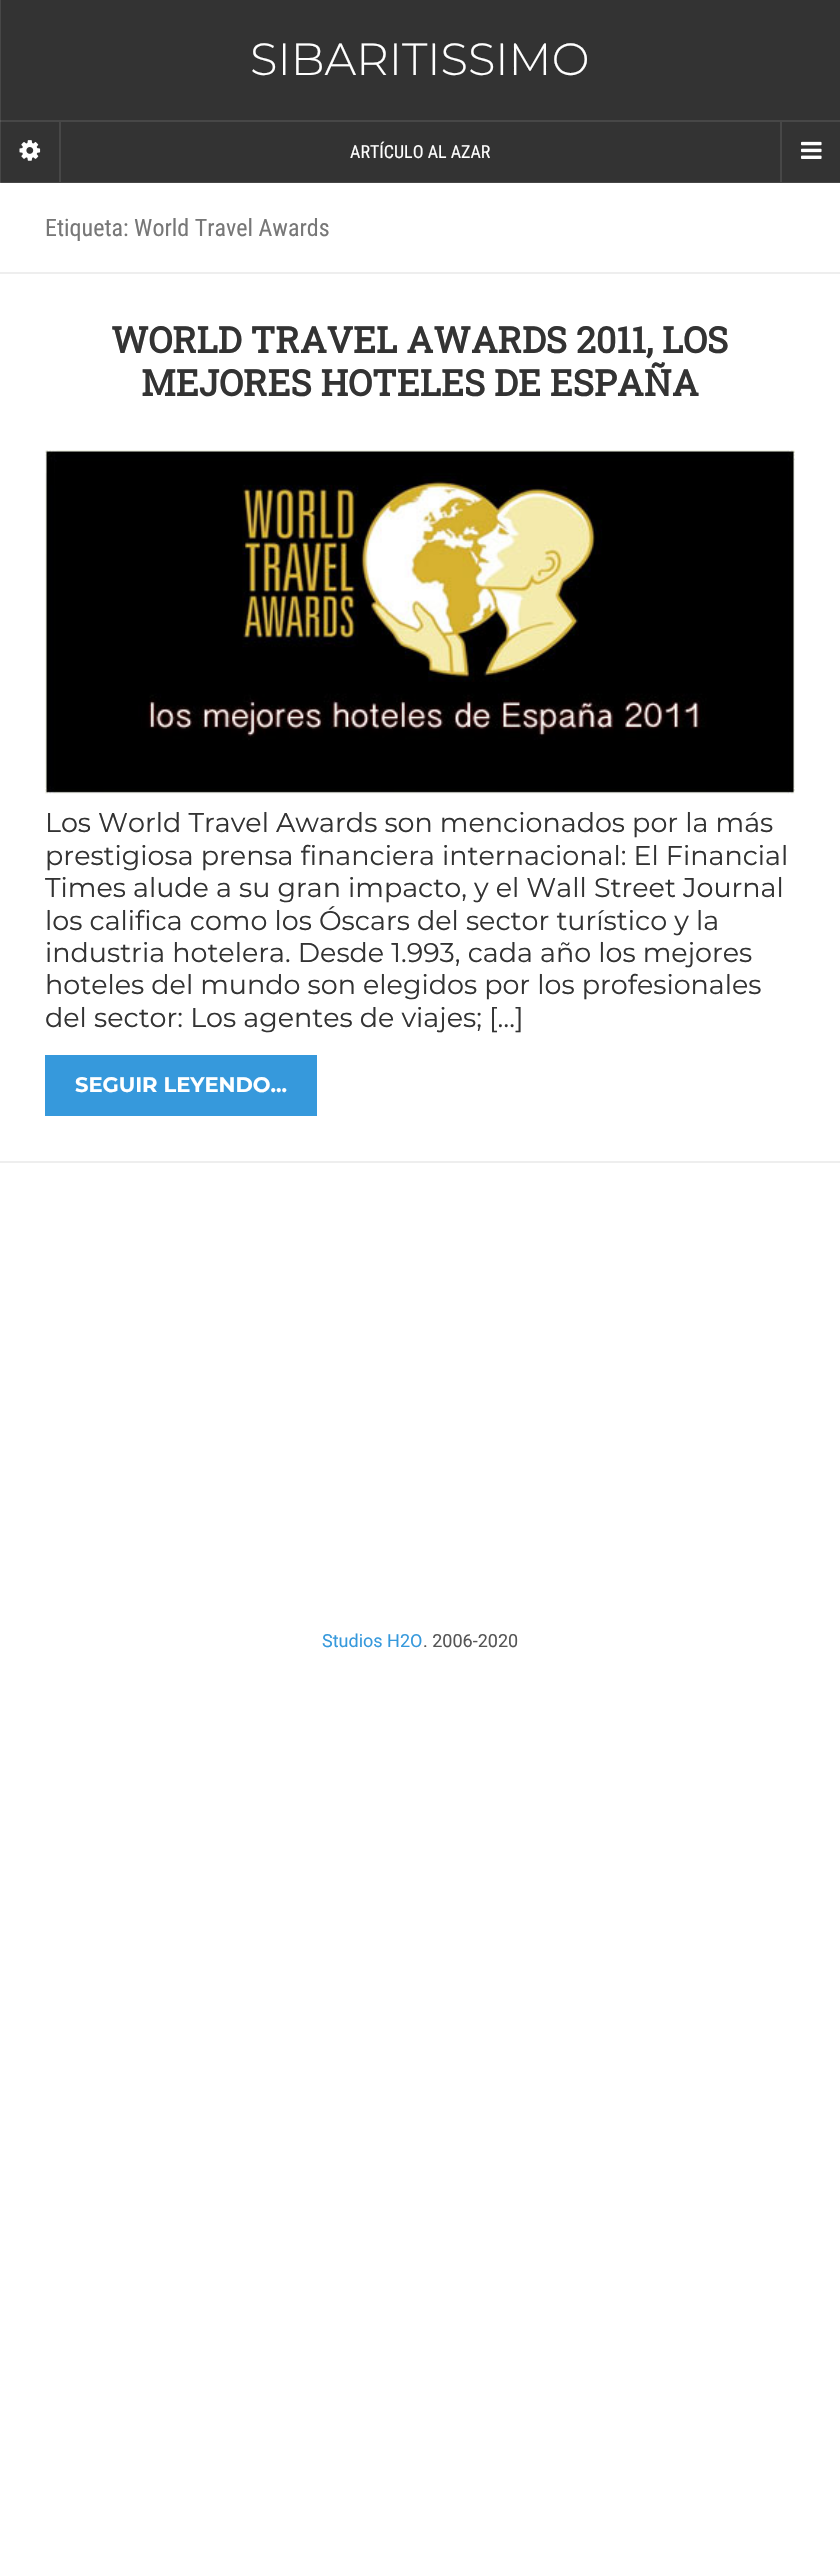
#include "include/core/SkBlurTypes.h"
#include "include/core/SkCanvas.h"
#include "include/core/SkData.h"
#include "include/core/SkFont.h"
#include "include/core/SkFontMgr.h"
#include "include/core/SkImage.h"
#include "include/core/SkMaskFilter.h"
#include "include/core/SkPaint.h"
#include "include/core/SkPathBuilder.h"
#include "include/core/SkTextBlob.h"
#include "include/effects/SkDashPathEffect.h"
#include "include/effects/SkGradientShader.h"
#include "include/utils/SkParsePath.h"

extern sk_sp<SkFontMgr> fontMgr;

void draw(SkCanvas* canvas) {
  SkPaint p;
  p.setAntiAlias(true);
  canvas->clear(SK_ColorWHITE);
  p.setColor(SkColorSetRGB(51, 51, 51));
  canvas->drawRect(SkRect::MakeLTRB(1, 0, 840, 182), p);
  p.setColor(SkColorSetRGB(71, 71, 71));
  canvas->drawRect(SkRect::MakeLTRB(0, 0, 1, 182), p);
  canvas->drawRect(SkRect::MakeLTRB(59, 122, 61, 182), p);
  canvas->drawImageRect(SkImages::DeferredFromEncodedData(SkData::MakeFromFileName("images/1.png")), SkRect::MakeLTRB(19, 140, 41, 161), SkSamplingOptions());
  canvas->drawRect(SkRect::MakeLTRB(0, 182, 840, 183), p);
  p.setColor(SkColorSetRGB(89, 89, 89));
  canvas->drawRect(SkRect::MakeLTRB(0, 182, 1, 184), p);
  p.setColor(SkColorSetRGB(71, 71, 71));
  canvas->drawRect(SkRect::MakeLTRB(0, 120, 840, 122), p);
  p.setColor(SkColorSetRGB(89, 89, 89));
  canvas->drawRect(SkRect::MakeLTRB(0, 120, 1, 122), p);
  p.setColor(SkColorSetRGB(71, 71, 71));
  canvas->drawRect(SkRect::MakeLTRB(780, 122, 782, 182), p);
  canvas->drawImageRect(SkImages::DeferredFromEncodedData(SkData::MakeFromFileName("images/2.png")), SkRect::MakeLTRB(801, 141, 822, 159), SkSamplingOptions());
  p.setColor(SK_ColorWHITE);
  canvas->drawRect(SkRect::MakeLTRB(0, 183, 1, 184), p);
  p.setColor(SkColorSetRGB(238, 238, 238));
  canvas->drawRect(SkRect::MakeLTRB(0, 272, 840, 274), p);
  canvas->drawRect(SkRect::MakeLTRB(0, 1161, 840, 1163), p);
  canvas->drawImageRect(SkImages::DeferredFromEncodedData(SkData::MakeFromFileName("images/3.png")), SkRect::MakeLTRB(45, 450, 795, 794), SkSamplingOptions());
  p.setColor(SkColorSetRGB(54, 153, 220));
  canvas->drawRect(SkRect::MakeLTRB(45, 1055, 317, 1116), p);
  SkFont font1(fontMgr->matchFamilyStyle("Montserrat", SkFontStyle(300, SkFontStyle::kNormal_Width, SkFontStyle::kUpright_Slant)), 45);
  font1.setSubpixel(true);
  p.setColor(SK_ColorWHITE);
  canvas->drawString("SIBARITISSIMO", 250, 75, font1, p);
  SkFont font2(fontMgr->matchFamilyStyle("Roboto Condensed", SkFontStyle::Normal()), 18);
  font2.setSubpixel(true);
  canvas->drawString("ARTÍCULO AL AZAR", 350, 158, font2, p);
  SkFont font3(fontMgr->matchFamilyStyle("Roboto Condensed", SkFontStyle::Normal()), 24);
  font3.setSubpixel(true);
  p.setColor(SkColorSetRGB(119, 119, 119));
  canvas->drawString("Etiqueta: World Travel Awards", 45, 236, font3, p);
  SkFont font4(fontMgr->matchFamilyStyle("Roboto Slab", SkFontStyle::Bold()), 36);
  font4.setSubpixel(true);
  p.setColor(SkColorSetRGB(51, 51, 51));
  canvas->drawString("WORLD TRAVEL AWARDS 2011, LOS", 111, 353, font4, p);
  canvas->drawString("MEJORES HOTELES DE ESPAÑA", 141, 396, font4, p);
  SkFont font5(fontMgr->matchFamilyStyle("Montserrat", SkFontStyle::Normal()), 27);
  font5.setSubpixel(true);
  canvas->drawString("Los World Travel Awards son mencionados por la más", 45, 832, font5, p);
  canvas->drawString("prestigiosa prensa financiera internacional: El Financial", 45, 865, font5, p);
  canvas->drawString("Times alude a su gran impacto, y el Wall Street Journal", 45, 897, font5, p);
  canvas->drawString("los califica como los Óscars del sector turístico y la", 45, 930, font5, p);
  canvas->drawString("industria hotelera. Desde 1.993, cada año los mejores", 45, 962, font5, p);
  canvas->drawString("hoteles del mundo son elegidos por los profesionales", 45, 994, font5, p);
  canvas->drawString("del sector: Los agentes de viajes; […]", 45, 1027, font5, p);
  SkFont font6(fontMgr->matchFamilyStyle("Montserrat", SkFontStyle::Bold()), 21);
  font6.setSubpixel(true);
  p.setColor(SK_ColorWHITE);
  canvas->drawString("SEGUIR LEYENDO...", 75, 1092, font6, p);
  SkFont font7(fontMgr->matchFamilyStyle("Roboto", SkFontStyle::Normal()), 18);
  font7.setSubpixel(true);
  p.setColor(SkColorSetRGB(54, 153, 220));
  canvas->drawString("Studios H2O", 322, 1647, font7, p);
  p.setColor(SkColorSetRGB(85, 85, 85));
  canvas->drawString(". 2006-2020", 423, 1647, font7, p);
}
